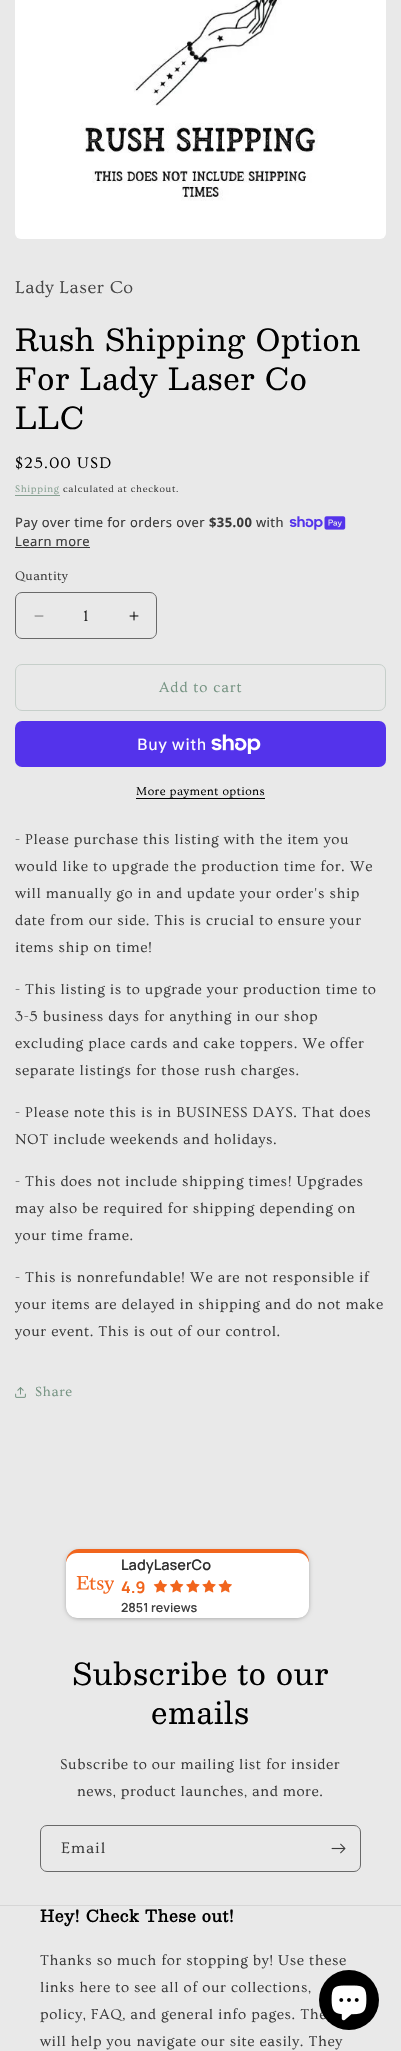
#include "include/core/SkBlurTypes.h"
#include "include/core/SkCanvas.h"
#include "include/core/SkData.h"
#include "include/core/SkFont.h"
#include "include/core/SkFontMgr.h"
#include "include/core/SkImage.h"
#include "include/core/SkMaskFilter.h"
#include "include/core/SkPaint.h"
#include "include/core/SkPathBuilder.h"
#include "include/core/SkTextBlob.h"
#include "include/effects/SkDashPathEffect.h"
#include "include/effects/SkGradientShader.h"
#include "include/utils/SkParsePath.h"

extern sk_sp<SkFontMgr> fontMgr;

void draw(SkCanvas* canvas) {
  SkPaint p;
  p.setAntiAlias(true);
  auto spacedText = [&](const char* s, float x, float y, const SkFont& font, const SkPaint& ink, float letter, float word) {
    std::vector<SkGlyphID> glyphs(font.countText(s, strlen(s), SkTextEncoding::kUTF8));
    std::vector<float> xs(glyphs.size());
    font.textToGlyphs(s, strlen(s), SkTextEncoding::kUTF8, glyphs);
    font.getXPos(glyphs, xs, x);
    float extra = 0;
    for (size_t i = 0; i < glyphs.size(); i++) {
      xs[i] += extra;
      extra += letter + word * (glyphs[i] == font.unicharToGlyph(' '));
    }
    canvas->drawTextBlob(SkTextBlob::MakeFromPosHGlyphs(glyphs, xs, y, font), 0, 0, ink);
  };
  canvas->clear(SkColorSetRGB(233, 233, 233));
  canvas->drawImageRect(SkImages::DeferredFromEncodedData(SkData::MakeFromFileName("images/1.png")), SkRect::MakeLTRB(15, 0, 386, 239), SkSamplingOptions());
  p.setColor(SkColorSetRGB(134, 160, 145));
  canvas->drawRect(SkRect::MakeLTRB(15, 495, 60, 496), p);
  canvas->drawImageRect(SkImages::DeferredFromEncodedData(SkData::MakeFromFileName("images/2.png")), SkRect::MakeLTRB(289, 516, 346, 530), SkSamplingOptions());
  p.setColor(SkColorSetRGB(58, 58, 58));
  canvas->drawRect(SkRect::MakeLTRB(15, 547, 90, 548), p);
  canvas->drawImageRect(SkImages::DeferredFromEncodedData(SkData::MakeFromFileName("images/3.png")), SkRect::MakeLTRB(34, 615, 44, 617), SkSamplingOptions());
  canvas->drawImageRect(SkImages::DeferredFromEncodedData(SkData::MakeFromFileName("images/4.png")), SkRect::MakeLTRB(129, 611, 139, 621), SkSamplingOptions());
  p.setStyle(SkPaint::kStroke_Style);
  p.setStrokeWidth(1);
  p.setColor(SkColorSetRGB(105, 105, 105));
  canvas->drawRoundRect(SkRect::MakeLTRB(15.5f, 592.5f, 156.5f, 638.5f), 6.5f, 6.5f, p);
  p.setColor(SkColorSetRGB(198, 207, 202));
  canvas->drawRoundRect(SkRect::MakeLTRB(15.5f, 664.5f, 385.5f, 710.5f), 6.5f, 6.5f, p);
  p.setStyle(SkPaint::kFill_Style);
  p.setColor(SkColorSetRGB(84, 51, 235));
  canvas->drawRoundRect(SkRect::MakeLTRB(15, 721, 386, 767), 7, 7, p);
  canvas->drawImageRect(SkImages::DeferredFromEncodedData(SkData::MakeFromFileName("images/5.png")), SkRect::MakeLTRB(211, 734, 261, 754), SkSamplingOptions());
  p.setColor(SK_ColorBLACK);
  canvas->drawRect(SkRect::MakeLTRB(136, 798, 265, 799), p);
  canvas->drawImageRect(SkImages::DeferredFromEncodedData(SkData::MakeFromFileName("images/6.png")), SkRect::MakeLTRB(15, 1387, 26, 1398), SkSamplingOptions());
  p.setColor(SkColorSetARGB(66, 0, 0, 0));
  p.setMaskFilter(SkMaskFilter::MakeBlur(kNormal_SkBlurStyle, 2));
  canvas->drawRoundRect(SkRect::MakeLTRB(66, 1551, 309, 1619), 13, 13, p);
  p.setMaskFilter(nullptr);
  p.setColor(SkColorSetRGB(241, 101, 29));
  canvas->drawPath(SkPathBuilder().moveTo(79, 1549).lineTo(296, 1549).cubicTo(303, 1549, 309, 1555, 309, 1562).lineTo(66, 1562).cubicTo(66, 1555, 72, 1549, 79, 1549).close().detach(), p);
  canvas->save();
  canvas->clipPath(SkPathBuilder().moveTo(79, 1549).lineTo(296, 1549).cubicTo(303, 1549, 309, 1555, 309, 1562).lineTo(309, 1607).cubicTo(309, 1613, 304, 1618, 298, 1618).lineTo(77, 1618).cubicTo(71, 1618, 66, 1613, 66, 1607).lineTo(66, 1562).cubicTo(66, 1555, 72, 1549, 79, 1549).close().detach(), true);
  p.setColor(SK_ColorWHITE);
  canvas->drawRoundRect(SkRect::MakeLTRB(66, 1553, 309, 1618), 11, 11, p);
  canvas->restore();
  canvas->drawImageRect(SkImages::DeferredFromEncodedData(SkData::MakeFromFileName("images/7.png")), SkRect::MakeLTRB(76, 1576, 114, 1594), SkSamplingOptions());
  canvas->drawImageRect(SkImages::DeferredFromEncodedData(SkData::MakeFromFileName("images/8.png")), SkRect::MakeLTRB(153, 1580, 168, 1593), SkSamplingOptions());
  canvas->drawImageRect(SkImages::DeferredFromEncodedData(SkData::MakeFromFileName("images/9.png")), SkRect::MakeLTRB(170, 1580, 184, 1593), SkSamplingOptions());
  canvas->drawImageRect(SkImages::DeferredFromEncodedData(SkData::MakeFromFileName("images/10.png")), SkRect::MakeLTRB(186, 1580, 200, 1593), SkSamplingOptions());
  canvas->drawImageRect(SkImages::DeferredFromEncodedData(SkData::MakeFromFileName("images/11.png")), SkRect::MakeLTRB(202, 1580, 216, 1593), SkSamplingOptions());
  canvas->drawImageRect(SkImages::DeferredFromEncodedData(SkData::MakeFromFileName("images/12.png")), SkRect::MakeLTRB(218, 1580, 232, 1593), SkSamplingOptions());
  p.setStyle(SkPaint::kStroke_Style);
  p.setColor(SkColorSetRGB(105, 105, 105));
  canvas->drawRoundRect(SkRect::MakeLTRB(40.5f, 1825.5f, 360.5f, 1871.5f), 6.5f, 6.5f, p);
  canvas->drawImageRect(SkImages::DeferredFromEncodedData(SkData::MakeFromFileName("images/13.png")), SkRect::MakeLTRB(331, 1843, 346, 1854), SkSamplingOptions());
  p.setStyle(SkPaint::kFill_Style);
  p.setColor(SkColorSetRGB(214, 214, 214));
  canvas->drawRect(SkRect::MakeLTRB(0, 1905, 401, 1906), p);
  SkFont font1(fontMgr->matchFamilyStyle("Ovo", SkFontStyle::Normal()), 18);
  font1.setSubpixel(true);
  p.setColor(SkColorSetRGB(70, 70, 70));
  spacedText("Lady Laser Co", 15, 293, font1, p, 0.6f, 0);
  SkFont font2(fontMgr->matchFamilyStyle("Besley", SkFontStyle::Normal()), 30);
  font2.setSubpixel(true);
  p.setColor(SK_ColorBLACK);
  spacedText("Rush Shipping Option", 15, 351, font2, p, 0.6f, 0);
  spacedText("For Lady Laser Co", 15, 390, font2, p, 0.6f, 0);
  spacedText("LLC", 15, 429, font2, p, 0.6f, 0);
  SkFont font3(fontMgr->matchFamilyStyle("Ovo", SkFontStyle::Normal()), 16);
  font3.setSubpixel(true);
  spacedText("$25.00 USD", 15, 468, font3, p, 1.25f, 0);
  SkFont font4(fontMgr->matchFamilyStyle("Ovo", SkFontStyle::Normal()), 10);
  font4.setSubpixel(true);
  p.setColor(SkColorSetRGB(134, 160, 145));
  spacedText("Shipping", 15, 492, font4, p, 0.7f, 0);
  p.setColor(SkColorSetRGB(58, 58, 58));
  spacedText("calculated at checkout.", 63, 492, font4, p, 0.7f, 0);
  SkFont font5(fontMgr->matchFamilyStyle("Noto Sans", SkFontStyle::Normal()), 13);
  font5.setSubpixel(true);
  spacedText("Pay over time for orders over", 15, 527, font5, p, 0.4f, 0);
  SkFont font6(fontMgr->matchFamilyStyle("Noto Sans", SkFontStyle::Bold()), 13);
  font6.setSubpixel(true);
  spacedText("$35.00", 209, 527, font6, p, 0.4f, 0);
  spacedText("with", 256, 527, font5, p, 0.4f, 0);
  spacedText("Learn more", 15, 546, font5, p, 0.4f, 0);
  SkFont font7(fontMgr->matchFamilyStyle("Ovo", SkFontStyle::Normal()), 13);
  font7.setSubpixel(true);
  spacedText("Quantity", 15, 580, font7, p, 0.4f, 0);
  p.setColor(SkColorSetRGB(35, 35, 35));
  canvas->drawString("1", 83, 621, font3, p);
  SkFont font8(fontMgr->matchFamilyStyle("Ovo", SkFontStyle::Normal()), 15);
  font8.setSubpixel(true);
  p.setColor(SkColorSetRGB(117, 147, 130));
  spacedText("Add to cart", 159, 692, font8, p, 1, 0);
  SkFont font9(fontMgr->matchFamilyStyle("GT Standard", SkFontStyle::Normal()), 16);
  font9.setSubpixel(true);
  p.setColor(SK_ColorWHITE);
  spacedText("Buy with", 137, 750, font9, p, 0.6f, 0);
  SkFont font10(fontMgr->matchFamilyStyle("Ovo", SkFontStyle::Normal()), 12);
  font10.setSubpixel(true);
  p.setColor(SK_ColorBLACK);
  spacedText("More payment options", 136, 795, font10, p, 0.5f, 0);
  p.setColor(SkColorSetRGB(58, 58, 58));
  spacedText("- Please purchase this listing with the item you", 15, 844, font8, p, 0.6f, 0);
  spacedText("would like to upgrade the production time for. We", 15, 871, font8, p, 0.6f, 0);
  spacedText("will manually go in and update your order's ship", 15, 898, font8, p, 0.6f, 0);
  spacedText("date from our side. This is crucial to ensure your", 15, 925, font8, p, 0.6f, 0);
  spacedText("items ship on time!", 15, 952, font8, p, 0.6f, 0);
  spacedText("- This listing is to upgrade your production time to", 15, 994, font8, p, 0.6f, 0);
  spacedText("3-5 business days for anything in our shop", 15, 1021, font8, p, 0.6f, 0);
  spacedText("excluding place cards and cake toppers. We offer", 15, 1048, font8, p, 0.6f, 0);
  spacedText("separate listings for those rush charges.", 15, 1075, font8, p, 0.6f, 0);
  spacedText("- Please note this is in BUSINESS DAYS. That does", 15, 1117, font8, p, 0.6f, 0);
  spacedText("NOT include weekends and holidays.", 15, 1144, font8, p, 0.6f, 0);
  spacedText("- This does not include shipping times! Upgrades", 15, 1186, font8, p, 0.6f, 0);
  spacedText("may also be required for shipping depending on", 15, 1213, font8, p, 0.6f, 0);
  spacedText("your time frame.", 15, 1240, font8, p, 0.6f, 0);
  spacedText("- This is nonrefundable! We are not responsible if", 15, 1282, font8, p, 0.6f, 0);
  spacedText("your items are delayed in shipping and do not make", 15, 1309, font8, p, 0.6f, 0);
  spacedText("your event. This is out of our control.", 15, 1336, font8, p, 0.6f, 0);
  SkFont font11(fontMgr->matchFamilyStyle("Ovo", SkFontStyle::Normal()), 14);
  font11.setSubpixel(true);
  p.setColor(SkColorSetRGB(117, 147, 130));
  spacedText("Share", 35, 1396, font11, p, 0.6f, 0);
  SkFont font12(fontMgr->matchFamilyStyle("Manrope", SkFontStyle(600, SkFontStyle::kNormal_Width, SkFontStyle::kUpright_Slant)), 14.5f);
  font12.setSubpixel(true);
  p.setColor(SkColorSetRGB(46, 46, 46));
  canvas->drawString("LadyLaserCo", 121, 1570, font12, p);
  SkFont font13(fontMgr->matchFamilyStyle("Manrope", SkFontStyle::Bold()), 16);
  font13.setSubpixel(true);
  p.setColor(SkColorSetRGB(241, 101, 29));
  canvas->drawString("4.9", 121, 1593, font13, p);
  SkFont font14(fontMgr->matchFamilyStyle("Manrope", SkFontStyle(600, SkFontStyle::kNormal_Width, SkFontStyle::kUpright_Slant)), 12.5f);
  font14.setSubpixel(true);
  p.setColor(SkColorSetRGB(64, 64, 64));
  canvas->drawString("2851 reviews", 121, 1612, font14, p);
  p.setColor(SK_ColorBLACK);
  spacedText("Subscribe to our", 72, 1685, font2, p, 0.6f, 0);
  spacedText("emails", 151, 1724, font2, p, 0.6f, 0);
  p.setColor(SkColorSetRGB(58, 58, 58));
  spacedText("Subscribe to our mailing list for insider", 60, 1769, font8, p, 0.6f, 0);
  spacedText("news, product launches, and more.", 77, 1796, font8, p, 0.6f, 0);
  spacedText("Email", 61, 1853, font3, p, 1, 0);
  SkFont font15(fontMgr->matchFamilyStyle("Besley", SkFontStyle::Bold()), 16);
  font15.setSubpixel(true);
  p.setColor(SK_ColorBLACK);
  spacedText("Hey! Check These out!", 40, 1922, font15, p, 0.6f, 0);
  p.setColor(SkColorSetRGB(58, 58, 58));
  spacedText("Thanks so much for stopping by! Use these", 40, 1965, font8, p, 0.6f, 0);
  spacedText("links here to see all of our collections,", 40, 1992, font8, p, 0.6f, 0);
  spacedText("policy, FAQ, and general info pages. The", 40, 2019, font8, p, 0.6f, 0);
  spacedText("will help you navigate our site easily. They", 40, 2046, font8, p, 0.6f, 0);
  p.setColor(SK_ColorBLACK);
  canvas->drawCircle(349, 2000, 30, p);
  canvas->drawImageRect(SkImages::DeferredFromEncodedData(SkData::MakeFromFileName("images/14.png")), SkRect::MakeLTRB(331, 1985, 367, 2021), SkSamplingOptions());
}
